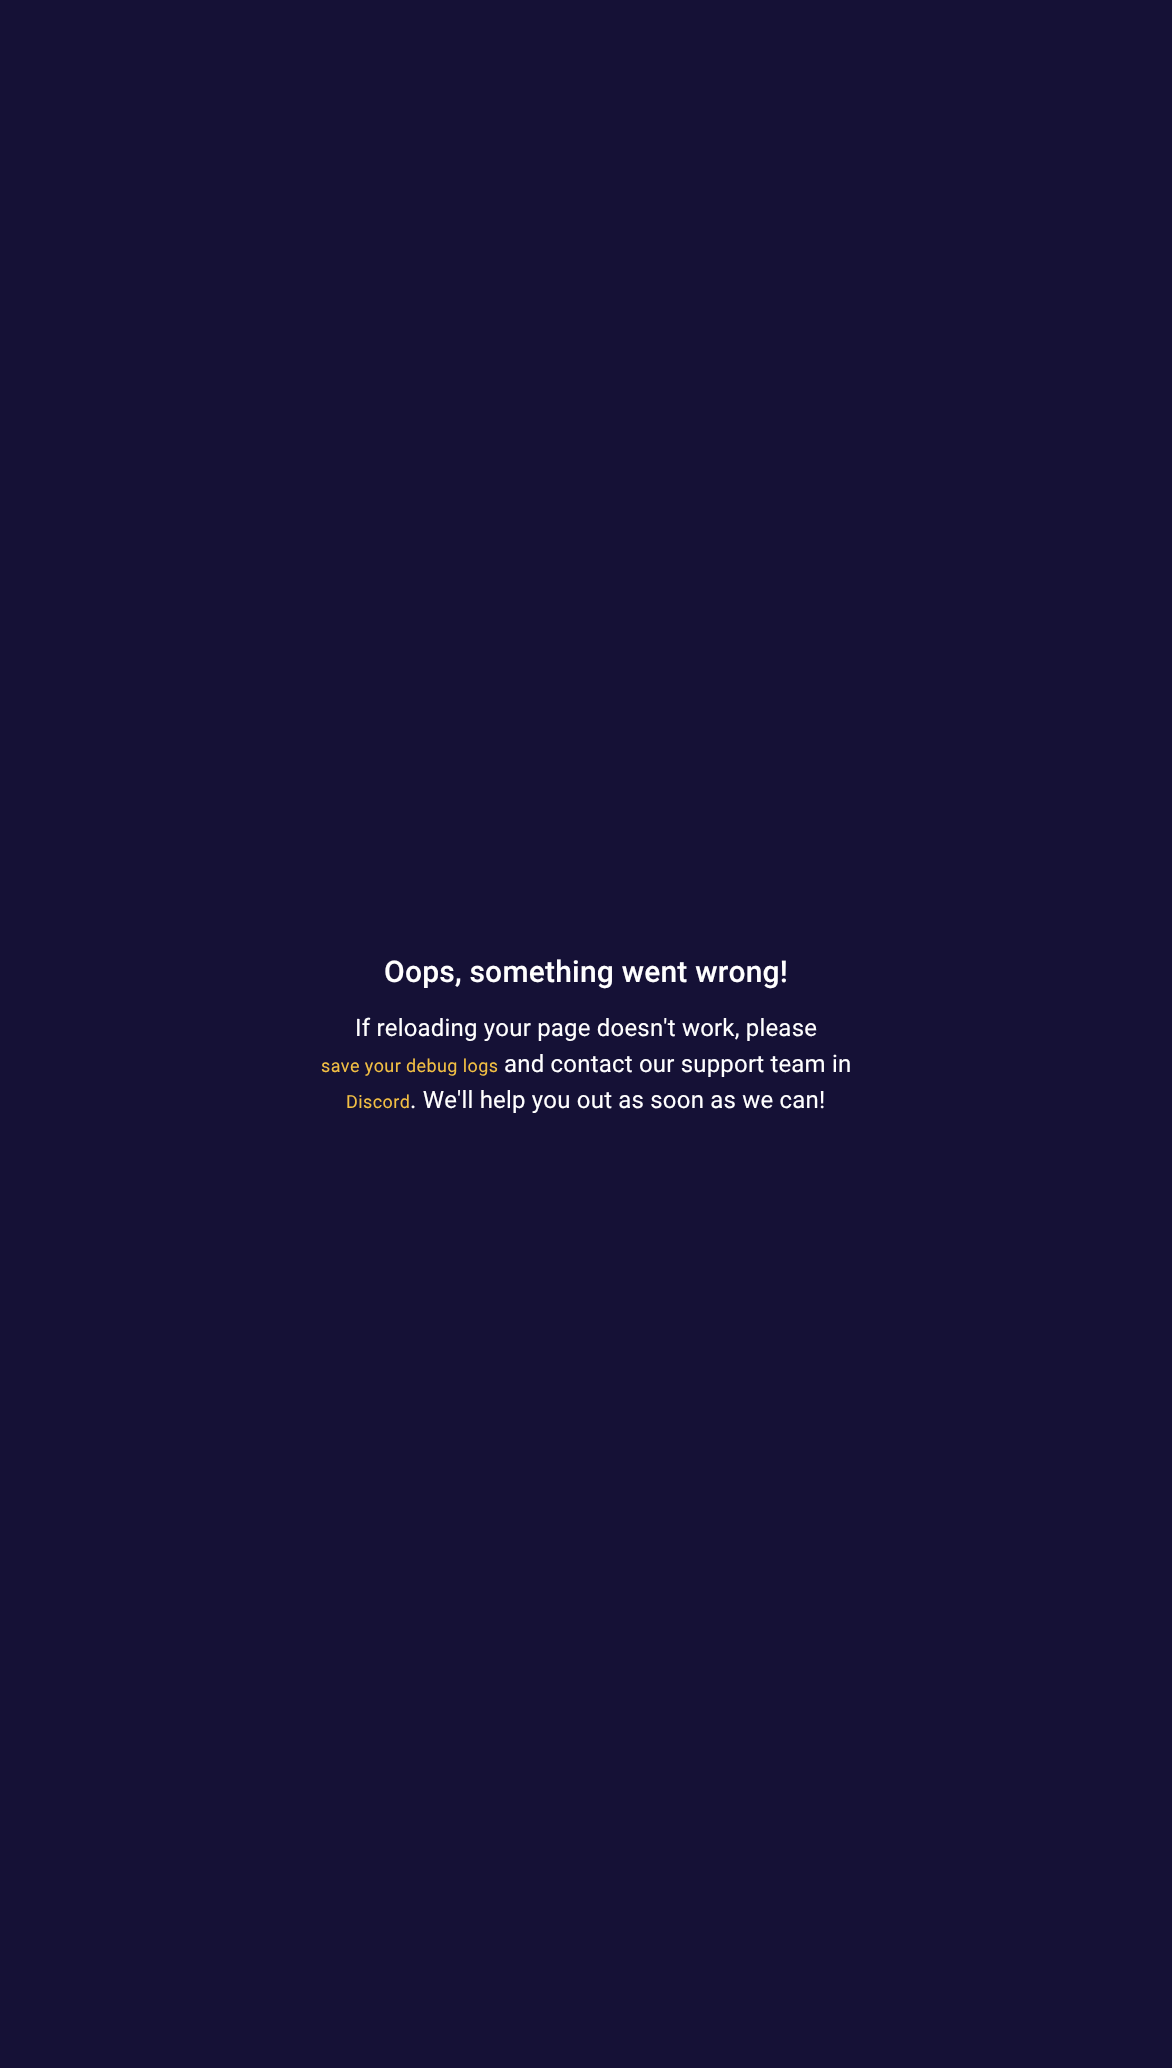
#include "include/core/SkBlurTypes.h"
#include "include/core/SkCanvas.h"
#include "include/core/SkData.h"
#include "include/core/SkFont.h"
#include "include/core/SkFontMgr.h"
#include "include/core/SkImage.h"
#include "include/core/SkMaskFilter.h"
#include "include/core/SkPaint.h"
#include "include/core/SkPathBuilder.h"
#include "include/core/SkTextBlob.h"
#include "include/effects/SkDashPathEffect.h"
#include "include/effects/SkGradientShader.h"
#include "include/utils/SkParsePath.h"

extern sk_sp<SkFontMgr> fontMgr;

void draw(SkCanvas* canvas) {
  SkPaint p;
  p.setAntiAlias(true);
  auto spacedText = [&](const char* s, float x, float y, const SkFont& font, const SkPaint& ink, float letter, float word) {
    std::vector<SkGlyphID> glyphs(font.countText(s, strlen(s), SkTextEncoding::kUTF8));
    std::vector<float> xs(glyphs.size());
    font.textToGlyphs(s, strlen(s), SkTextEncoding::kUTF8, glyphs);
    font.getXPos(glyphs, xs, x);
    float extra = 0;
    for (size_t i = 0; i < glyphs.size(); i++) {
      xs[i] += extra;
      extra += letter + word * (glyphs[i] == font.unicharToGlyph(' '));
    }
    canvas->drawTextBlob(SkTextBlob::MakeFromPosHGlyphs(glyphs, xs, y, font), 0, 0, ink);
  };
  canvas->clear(SkColorSetRGB(21, 17, 54));
  SkFont font1(fontMgr->matchFamilyStyle("Roboto", SkFontStyle(500, SkFontStyle::kNormal_Width, SkFontStyle::kUpright_Slant)), 30);
  font1.setSubpixel(true);
  p.setColor(SK_ColorWHITE);
  spacedText("Oops, something went wrong!", 384, 982, font1, p, 0.2f, 0);
  SkFont font2(fontMgr->matchFamilyStyle("Roboto", SkFontStyle::Normal()), 24);
  font2.setSubpixel(true);
  spacedText("If reloading your page doesn't work, please", 355, 1036, font2, p, 0.2f, 0);
  SkFont font3(fontMgr->matchFamilyStyle("Roboto", SkFontStyle::Normal()), 18);
  font3.setSubpixel(true);
  p.setColor(SkColorSetRGB(242, 191, 67));
  spacedText("save your debug logs", 321, 1072, font3, p, 0.4f, 0);
  p.setColor(SK_ColorWHITE);
  spacedText("and contact our support team in", 504, 1072, font2, p, 0.2f, 0);
  p.setColor(SkColorSetRGB(242, 191, 67));
  spacedText("Discord", 346, 1108, font3, p, 0.4f, 0);
  p.setColor(SK_ColorWHITE);
  spacedText(". We'll help you out as soon as we can!", 410, 1108, font2, p, 0.2f, 0);
}
